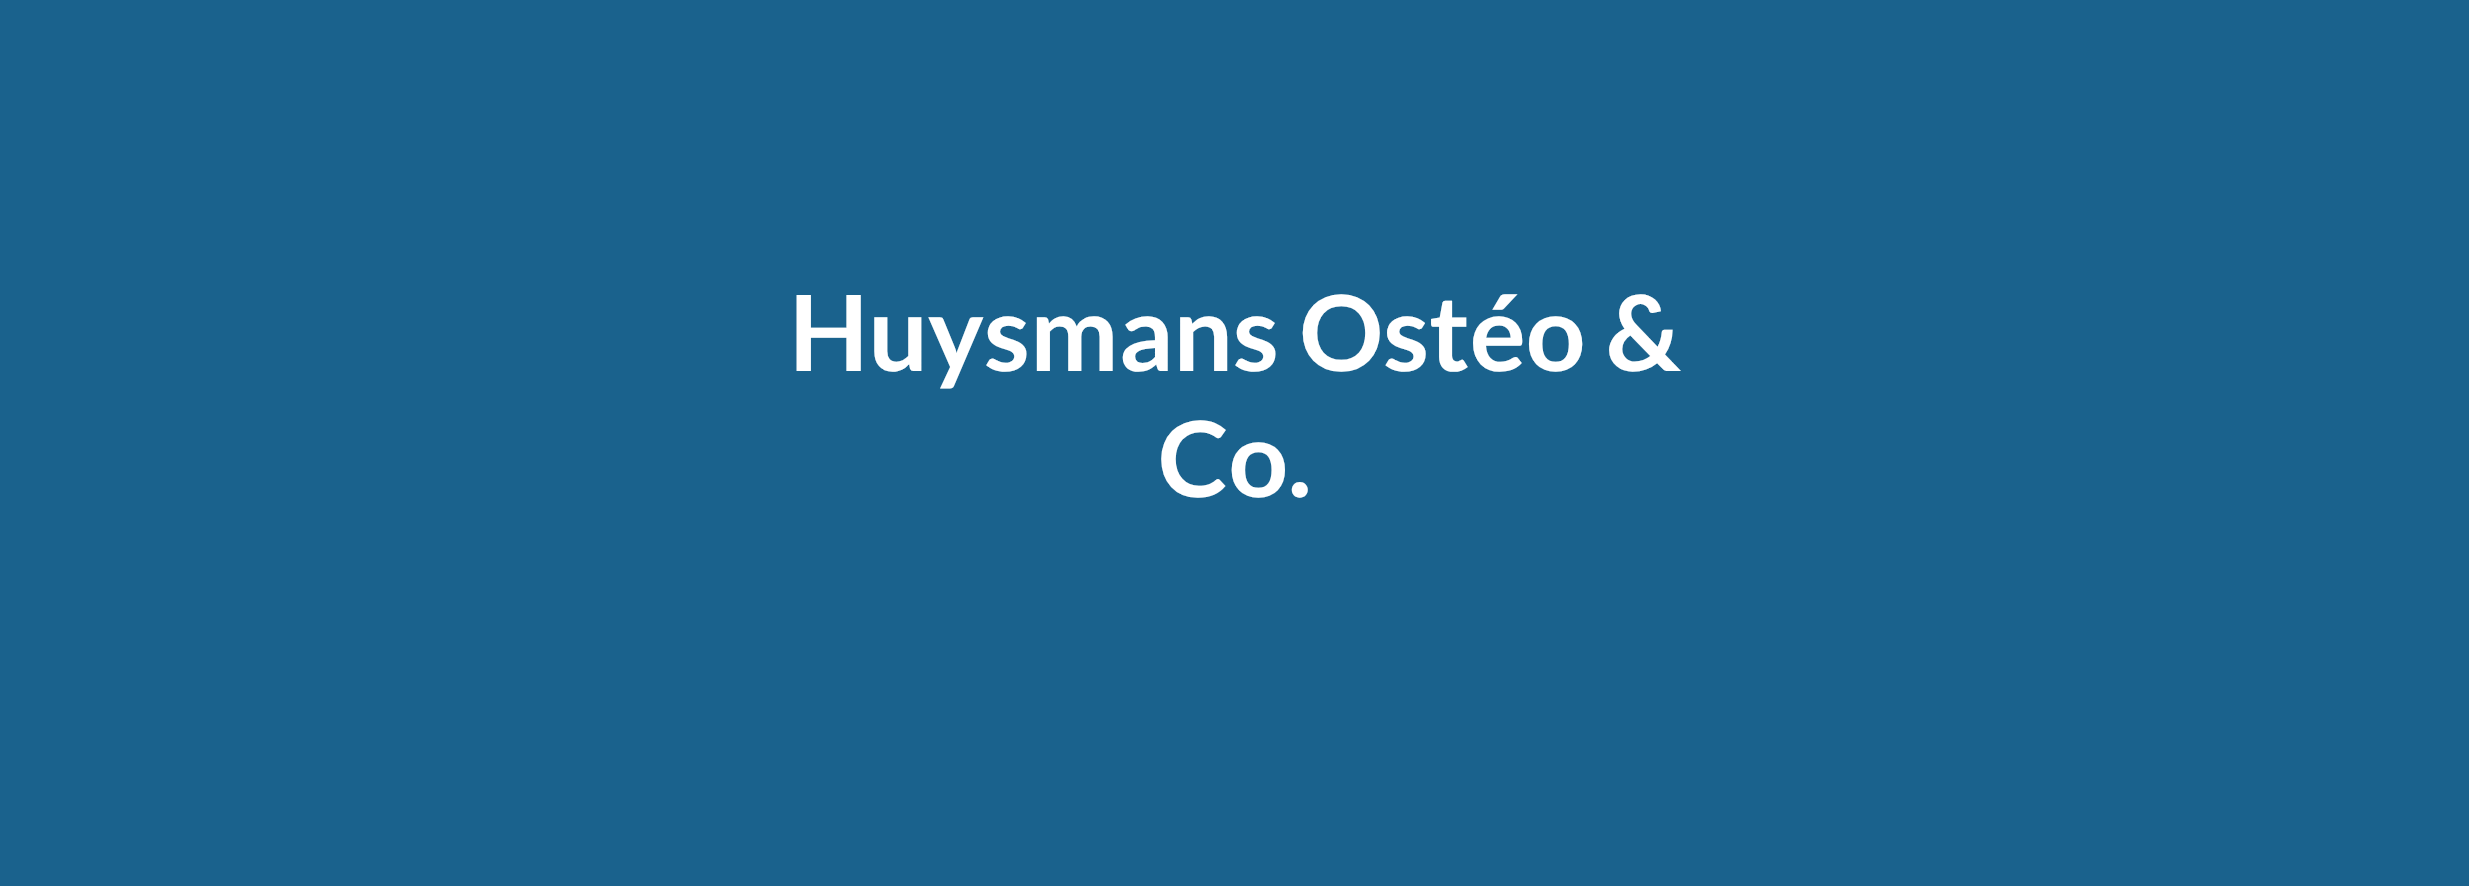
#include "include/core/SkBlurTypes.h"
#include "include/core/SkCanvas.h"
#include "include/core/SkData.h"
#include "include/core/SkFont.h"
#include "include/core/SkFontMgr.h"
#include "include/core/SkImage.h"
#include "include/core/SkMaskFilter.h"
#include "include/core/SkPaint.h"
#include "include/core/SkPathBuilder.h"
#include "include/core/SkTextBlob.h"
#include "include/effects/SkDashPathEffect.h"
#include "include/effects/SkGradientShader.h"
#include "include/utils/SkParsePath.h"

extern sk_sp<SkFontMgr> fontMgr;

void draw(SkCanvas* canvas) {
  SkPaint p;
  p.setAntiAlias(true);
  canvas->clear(SkColorSetRGB(26, 98, 141));
  SkFont font1(fontMgr->matchFamilyStyle("Lato", SkFontStyle::Bold()), 105);
  font1.setSubpixel(true);
  p.setColor(SK_ColorWHITE);
  canvas->drawString("Huysmans Ostéo &", 789, 371, font1, p);
  canvas->drawString("Co.", 1158, 497, font1, p);
}
